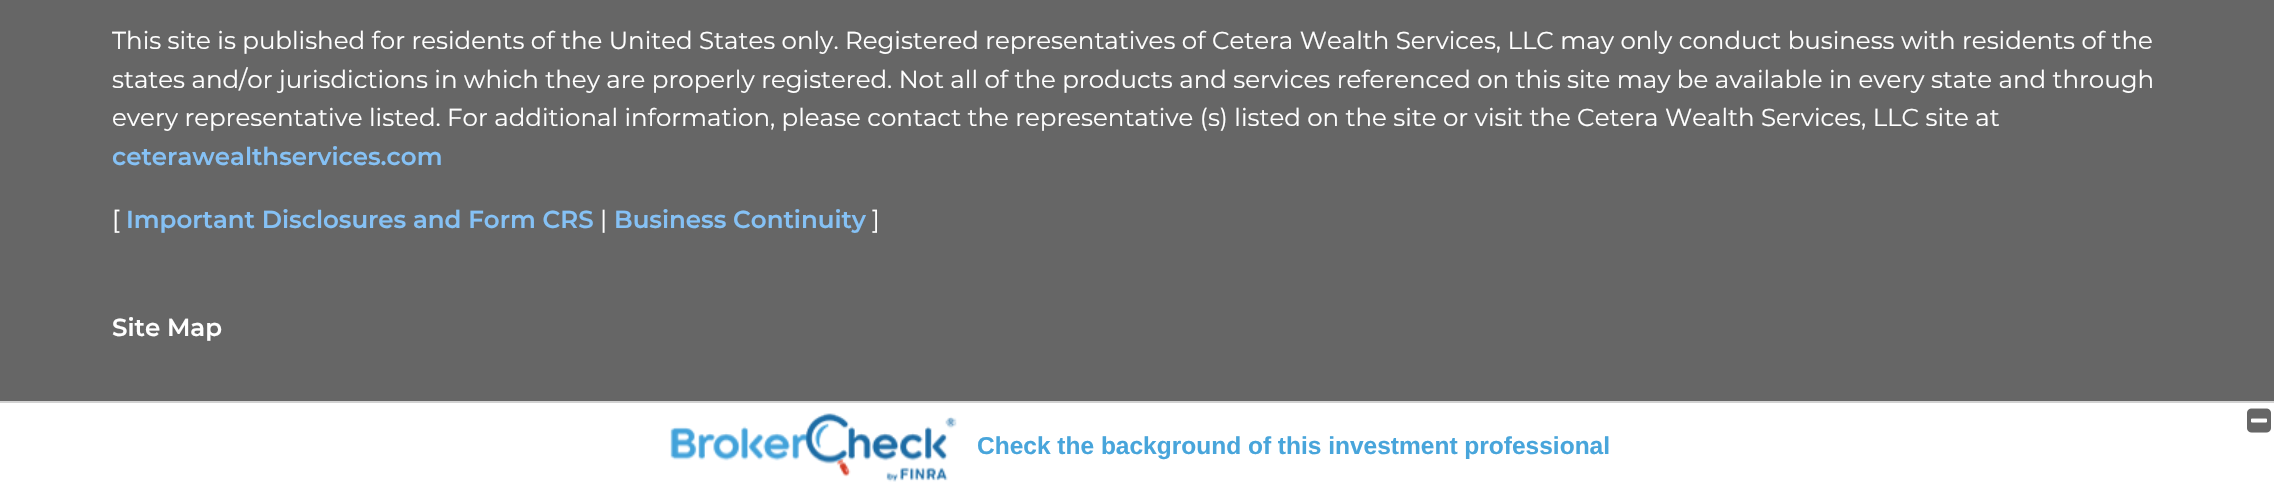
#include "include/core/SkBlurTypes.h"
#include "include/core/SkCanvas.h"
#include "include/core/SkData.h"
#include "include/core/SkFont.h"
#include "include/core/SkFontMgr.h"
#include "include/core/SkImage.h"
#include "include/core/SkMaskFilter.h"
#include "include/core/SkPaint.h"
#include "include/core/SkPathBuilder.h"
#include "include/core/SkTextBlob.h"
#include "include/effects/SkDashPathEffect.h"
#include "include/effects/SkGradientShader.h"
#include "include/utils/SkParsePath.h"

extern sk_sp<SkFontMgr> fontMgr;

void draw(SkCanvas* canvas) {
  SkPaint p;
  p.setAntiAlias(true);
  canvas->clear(SkColorSetRGB(102, 102, 102));
  p.setColor(SK_ColorWHITE);
  canvas->drawRect(SkRect::MakeLTRB(0, 403, 2274, 482), p);
  p.setColor(SkColorSetRGB(210, 210, 210));
  canvas->drawRect(SkRect::MakeLTRB(0, 401, 2274, 403), p);
  canvas->drawImageRect(SkImages::DeferredFromEncodedData(SkData::MakeFromFileName("images/1.png")), SkRect::MakeLTRB(2247, 408, 2271, 433), SkSamplingOptions());
  canvas->drawImageRect(SkImages::DeferredFromEncodedData(SkData::MakeFromFileName("images/2.png")), SkRect::MakeLTRB(670, 413, 957, 482), SkSamplingOptions());
  SkFont font1(fontMgr->matchFamilyStyle("Montserrat", SkFontStyle::Normal()), 24.5f);
  font1.setSubpixel(true);
  p.setColor(SK_ColorWHITE);
  canvas->drawString("This site is published for residents of the United States only. Registered representatives of Cetera Wealth Services, LLC may only conduct business with residents of the", 112, 49, font1, p);
  canvas->drawString("states and/or jurisdictions in which they are properly registered. Not all of the products and services referenced on this site may be available in every state and through", 112, 88, font1, p);
  canvas->drawString("every representative listed. For additional information, please contact the representative (s) listed on the site or visit the Cetera Wealth Services, LLC site at", 112, 126, font1, p);
  SkFont font2(fontMgr->matchFamilyStyle("Montserrat", SkFontStyle(600, SkFontStyle::kNormal_Width, SkFontStyle::kUpright_Slant)), 24.5f);
  font2.setSubpixel(true);
  p.setColor(SkColorSetRGB(133, 193, 245));
  canvas->drawString("ceterawealthservices.com", 112, 165, font2, p);
  p.setColor(SK_ColorWHITE);
  canvas->drawString("[", 112, 228, font1, p);
  p.setColor(SkColorSetRGB(133, 193, 245));
  canvas->drawString("Important Disclosures and Form CRS", 126, 228, font2, p);
  p.setColor(SK_ColorWHITE);
  canvas->drawString("|", 600, 228, font1, p);
  p.setColor(SkColorSetRGB(133, 193, 245));
  canvas->drawString("Business Continuity", 614, 228, font2, p);
  p.setColor(SK_ColorWHITE);
  canvas->drawString("]", 872, 228, font1, p);
  canvas->drawString("Site Map", 112, 336, font2, p);
  SkFont font3(fontMgr->matchFamilyStyle("Liberation Sans", SkFontStyle::Bold()), 24.5f);
  font3.setSubpixel(true);
  p.setColor(SkColorSetRGB(72, 165, 219));
  canvas->drawString("Check the background of this investment professional", 977, 454, font3, p);
}
